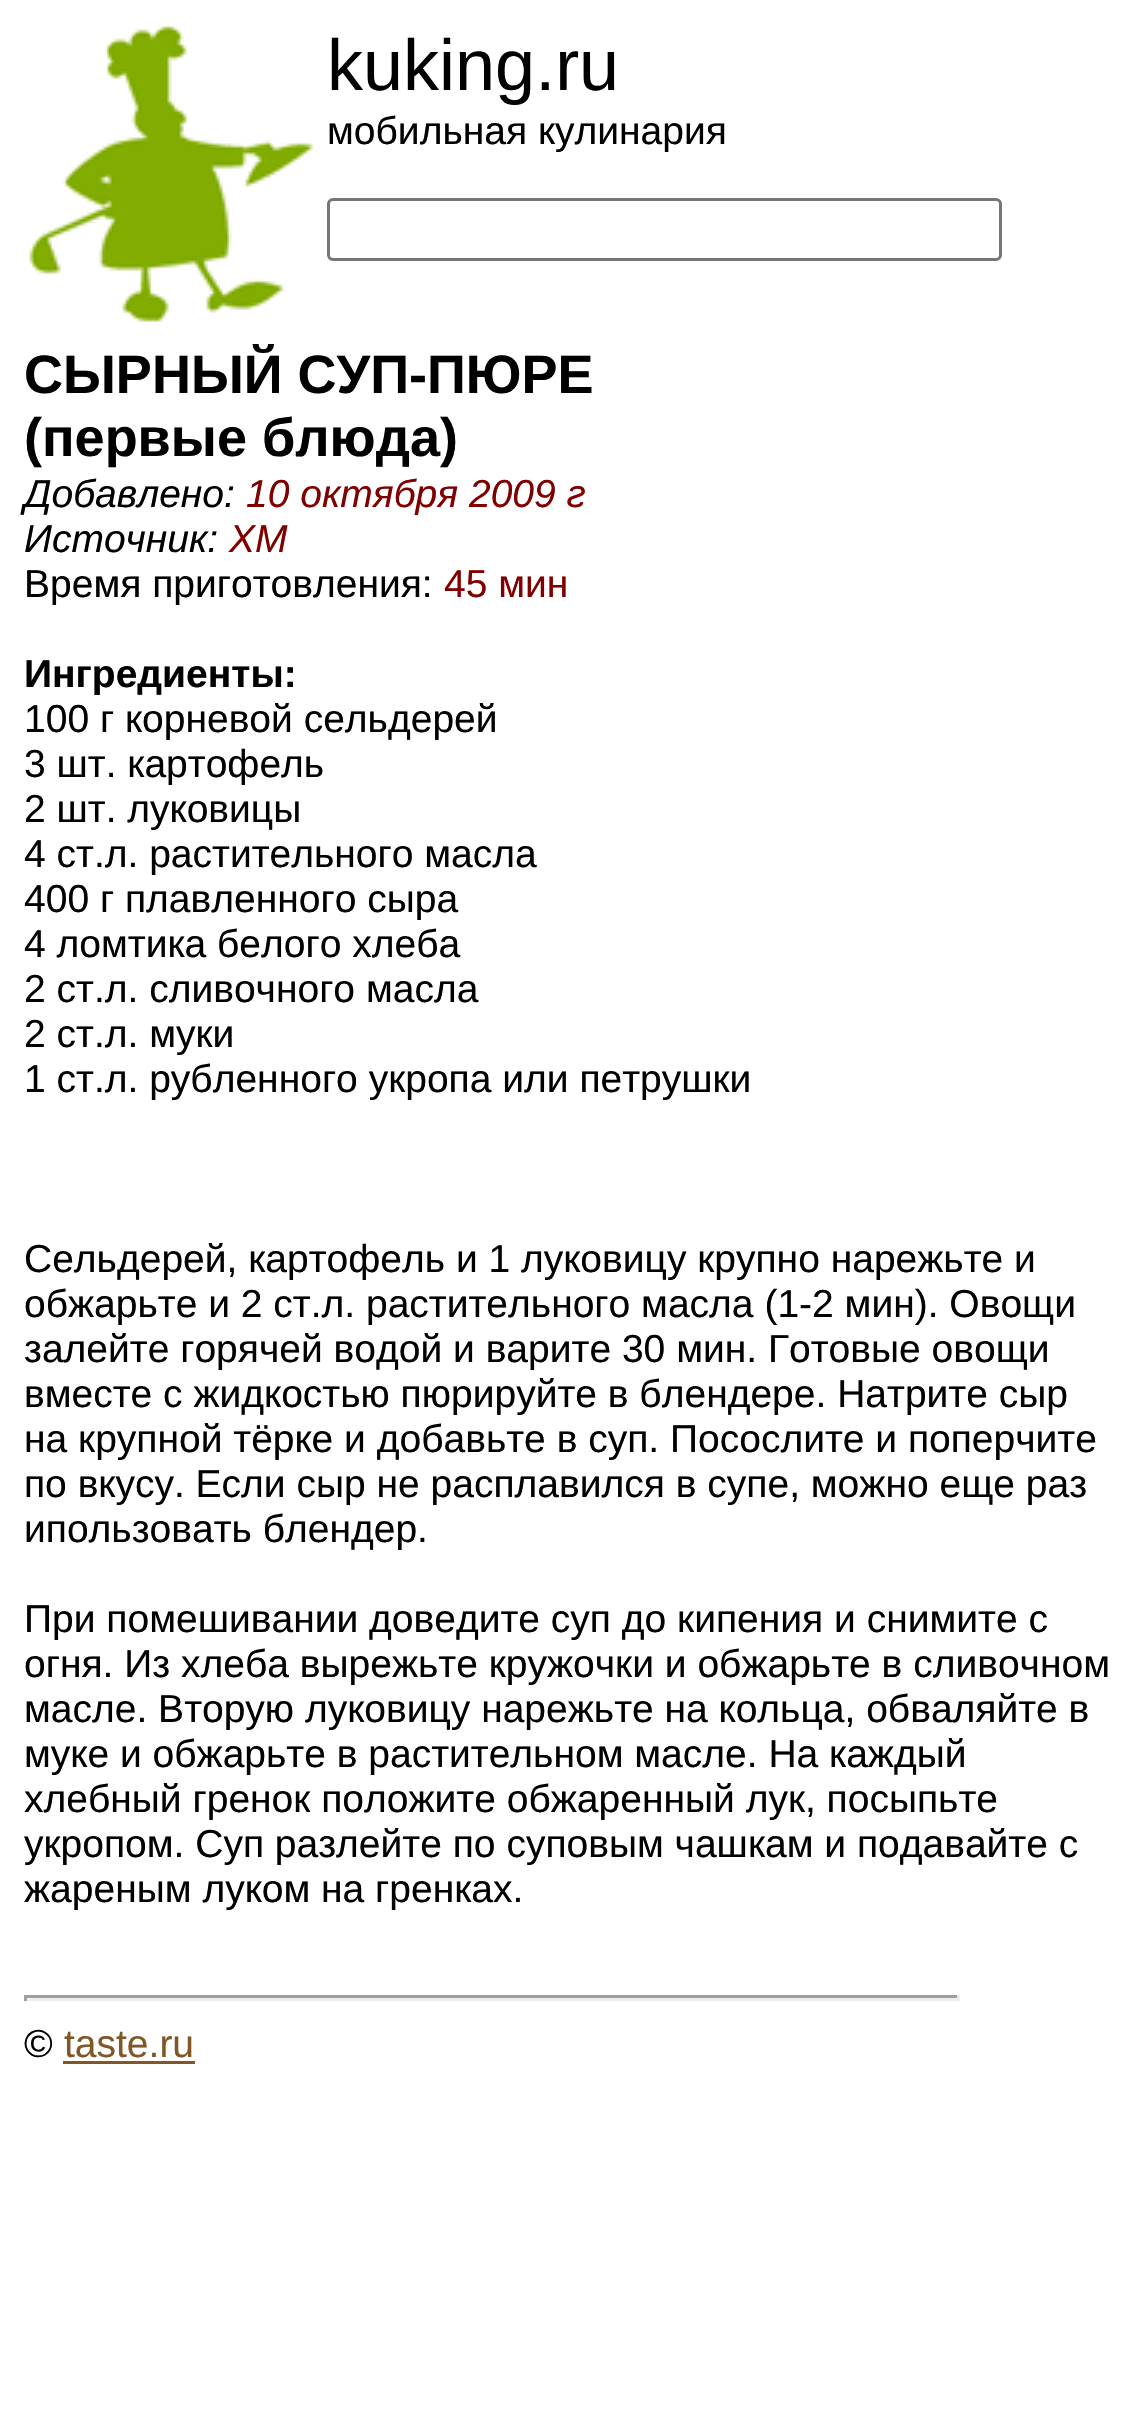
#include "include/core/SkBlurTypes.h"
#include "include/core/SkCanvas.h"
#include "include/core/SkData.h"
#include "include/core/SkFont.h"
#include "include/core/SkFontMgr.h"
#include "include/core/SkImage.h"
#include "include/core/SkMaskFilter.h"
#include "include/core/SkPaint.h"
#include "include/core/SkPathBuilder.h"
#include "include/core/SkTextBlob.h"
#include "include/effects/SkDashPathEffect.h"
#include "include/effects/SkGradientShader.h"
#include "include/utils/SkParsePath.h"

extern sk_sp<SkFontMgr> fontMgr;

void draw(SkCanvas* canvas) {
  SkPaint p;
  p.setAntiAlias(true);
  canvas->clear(SK_ColorWHITE);
  canvas->drawImageRect(SkImages::DeferredFromEncodedData(SkData::MakeFromFileName("images/1.png")), SkRect::MakeLTRB(29, 26, 313, 322), SkSamplingOptions());
  p.setStyle(SkPaint::kStroke_Style);
  p.setStrokeWidth(3);
  p.setColor(SkColorSetRGB(118, 118, 118));
  canvas->drawRoundRect(SkRect::MakeLTRB(328.5f, 199.5f, 1000.5f, 259.5f), 4.5f, 4.5f, p);
  p.setStyle(SkPaint::kFill_Style);
  p.setColor(SkColorSetRGB(159, 159, 159));
  canvas->drawRect(SkRect::MakeLTRB(24, 1995, 960, 1998), p);
  p.setColor(SkColorSetRGB(238, 238, 238));
  canvas->drawRect(SkRect::MakeLTRB(957, 1995, 960, 2001), p);
  canvas->drawRect(SkRect::MakeLTRB(24, 1998, 960, 2001), p);
  p.setColor(SkColorSetRGB(159, 159, 159));
  canvas->drawRect(SkRect::MakeLTRB(24, 1995, 27, 2001), p);
  p.setColor(SkColorSetRGB(129, 87, 40));
  canvas->drawRect(SkRect::MakeLTRB(63, 2061, 195, 2064), p);
  SkFont font1(fontMgr->matchFamilyStyle("Liberation Sans", SkFontStyle::Normal()), 72);
  font1.setSubpixel(true);
  p.setColor(SK_ColorBLACK);
  canvas->drawString("kuking.ru", 327, 90, font1, p);
  SkFont font2(fontMgr->matchFamilyStyle("Liberation Sans", SkFontStyle::Normal()), 39);
  font2.setSubpixel(true);
  canvas->drawString("мобильная кулинария", 327, 144, font2, p);
  SkFont font3(fontMgr->matchFamilyStyle("Liberation Sans", SkFontStyle::Bold()), 54);
  font3.setSubpixel(true);
  canvas->drawString("СЫРНЫЙ СУП-ПЮРЕ", 24, 393, font3, p);
  canvas->drawString("(первые блюда)", 24, 456, font3, p);
  SkFont font4(fontMgr->matchFamilyStyle("Liberation Sans", SkFontStyle::Italic()), 39);
  font4.setSubpixel(true);
  canvas->drawString("Добавлено:", 24, 507, font4, p);
  p.setColor(SkColorSetRGB(128, 0, 0));
  canvas->drawString("10 октября 2009 г", 246, 507, font4, p);
  p.setColor(SK_ColorBLACK);
  canvas->drawString("Источник:", 24, 552, font4, p);
  p.setColor(SkColorSetRGB(128, 0, 0));
  canvas->drawString("ХМ", 229, 552, font4, p);
  p.setColor(SK_ColorBLACK);
  canvas->drawString("Время приготовления:", 24, 597, font2, p);
  p.setColor(SkColorSetRGB(128, 0, 0));
  canvas->drawString("45 мин", 444, 597, font2, p);
  SkFont font5(fontMgr->matchFamilyStyle("Liberation Sans", SkFontStyle::Bold()), 39);
  font5.setSubpixel(true);
  p.setColor(SK_ColorBLACK);
  canvas->drawString("Ингредиенты:", 24, 687, font5, p);
  canvas->drawString("100 г корневой сельдерей", 24, 732, font2, p);
  canvas->drawString("3 шт. картофель", 24, 777, font2, p);
  canvas->drawString("2 шт. луковицы", 24, 822, font2, p);
  canvas->drawString("4 ст.л. растительного масла", 24, 867, font2, p);
  canvas->drawString("400 г плавленного сыра", 24, 912, font2, p);
  canvas->drawString("4 ломтика белого хлеба", 24, 957, font2, p);
  canvas->drawString("2 ст.л. сливочного масла", 24, 1002, font2, p);
  canvas->drawString("2 ст.л. муки", 24, 1047, font2, p);
  canvas->drawString("1 ст.л. рубленного укропа или петрушки", 24, 1092, font2, p);
  canvas->drawString("Сельдерей, картофель и 1 луковицу крупно нарежьте и", 24, 1272, font2, p);
  canvas->drawString("обжарьте и 2 ст.л. растительного масла (1-2 мин). Овощи", 24, 1317, font2, p);
  canvas->drawString("залейте горячей водой и варите 30 мин. Готовые овощи", 24, 1362, font2, p);
  canvas->drawString("вместе с жидкостью пюрируйте в блендере. Натрите сыр", 24, 1407, font2, p);
  canvas->drawString("на крупной тёрке и добавьте в суп. Посослите и поперчите", 24, 1452, font2, p);
  canvas->drawString("по вкусу. Если сыр не расплавился в супе, можно еще раз", 24, 1497, font2, p);
  canvas->drawString("ипользовать блендер.", 24, 1542, font2, p);
  canvas->drawString("При помешивании доведите суп до кипения и снимите с", 24, 1632, font2, p);
  canvas->drawString("огня. Из хлеба вырежьте кружочки и обжарьте в сливочном", 24, 1677, font2, p);
  canvas->drawString("масле. Вторую луковицу нарежьте на кольца, обваляйте в", 24, 1722, font2, p);
  canvas->drawString("муке и обжарьте в растительном масле. На каждый", 24, 1767, font2, p);
  canvas->drawString("хлебный гренок положите обжаренный лук, посыпьте", 24, 1812, font2, p);
  canvas->drawString("укропом. Суп разлейте по суповым чашкам и подавайте с", 24, 1857, font2, p);
  canvas->drawString("жареным луком на гренках.", 24, 1902, font2, p);
  canvas->drawString("©", 24, 2057, font2, p);
  p.setColor(SkColorSetRGB(129, 87, 40));
  canvas->drawString("taste.ru", 64, 2057, font2, p);
}
